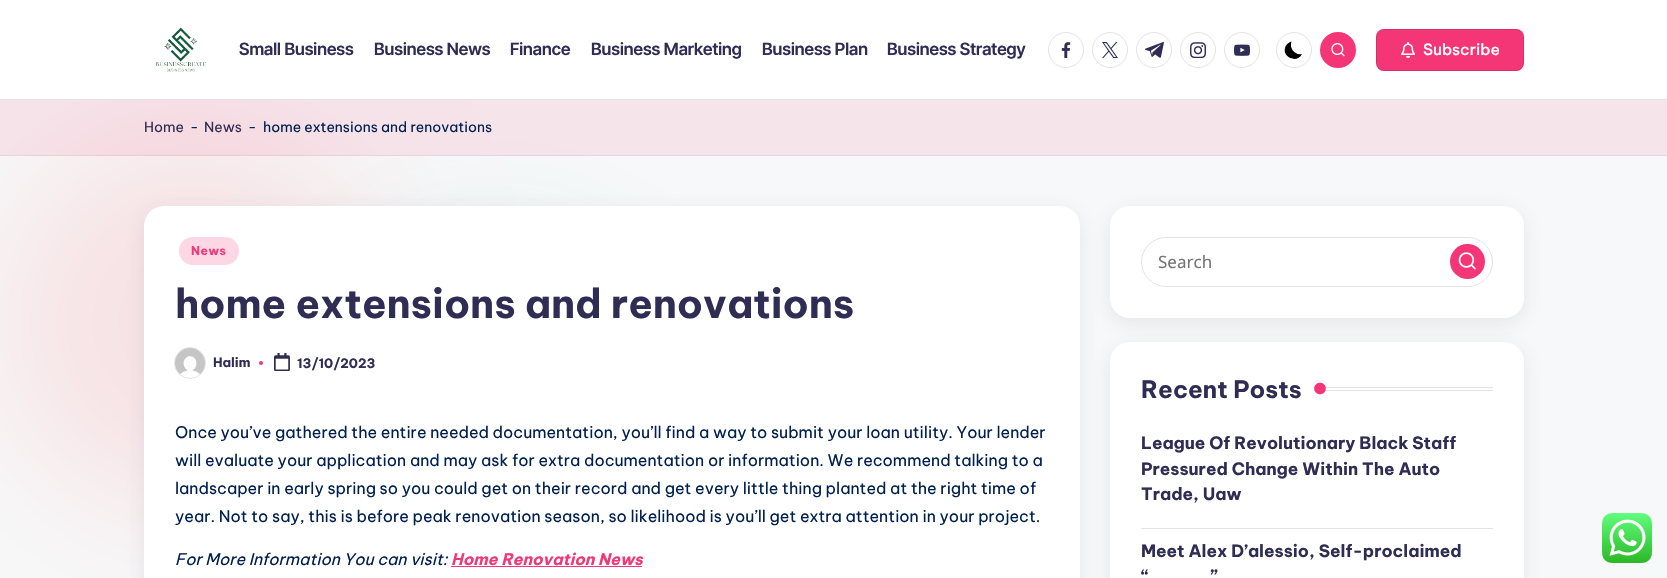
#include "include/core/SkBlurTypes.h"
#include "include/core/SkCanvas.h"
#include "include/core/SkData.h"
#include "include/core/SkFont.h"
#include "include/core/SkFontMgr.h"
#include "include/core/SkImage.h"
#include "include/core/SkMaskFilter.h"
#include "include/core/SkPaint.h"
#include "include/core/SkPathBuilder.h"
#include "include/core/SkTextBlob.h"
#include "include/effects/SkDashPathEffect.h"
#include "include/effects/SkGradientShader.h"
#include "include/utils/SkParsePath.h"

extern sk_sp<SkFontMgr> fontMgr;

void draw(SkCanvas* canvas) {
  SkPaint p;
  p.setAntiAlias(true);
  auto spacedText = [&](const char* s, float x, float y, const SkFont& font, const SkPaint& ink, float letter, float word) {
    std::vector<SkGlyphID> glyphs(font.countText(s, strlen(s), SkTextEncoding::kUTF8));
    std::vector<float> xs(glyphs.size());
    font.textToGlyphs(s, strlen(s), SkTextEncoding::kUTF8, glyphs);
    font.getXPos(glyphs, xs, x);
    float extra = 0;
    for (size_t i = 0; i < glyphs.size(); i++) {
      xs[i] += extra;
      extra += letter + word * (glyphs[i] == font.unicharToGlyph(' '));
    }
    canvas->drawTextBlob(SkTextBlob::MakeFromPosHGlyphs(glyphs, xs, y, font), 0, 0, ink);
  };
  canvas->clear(SkColorSetRGB(247, 248, 249));
  p.setColor(SkColorSetRGB(247, 227, 229));
  p.setMaskFilter(SkMaskFilter::MakeBlur(kNormal_SkBlurStyle, 64));
  canvas->drawRoundRect(SkRect::MakeLTRB(0, 130, 384, 514), 192, 192, p);
  p.setMaskFilter(nullptr);
  p.setColor(SkColorSetARGB(26, 4, 134, 139));
  p.setMaskFilter(SkMaskFilter::MakeBlur(kNormal_SkBlurStyle, 64));
  canvas->drawRoundRect(SkRect::MakeLTRB(304, 240, 688, 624), 192, 192, p);
  p.setMaskFilter(nullptr);
  p.setColor(SK_ColorWHITE);
  canvas->drawRect(SkRect::MakeLTRB(0, 0, 1667, 99), p);
  p.setColor(SkColorSetRGB(227, 227, 227));
  canvas->drawRect(SkRect::MakeLTRB(0, 99, 1667, 100), p);
  canvas->drawImageRect(SkImages::DeferredFromEncodedData(SkData::MakeFromFileName("images/1.png")), SkRect::MakeLTRB(155, 27, 206, 72), SkSamplingOptions());
  p.setStyle(SkPaint::kStroke_Style);
  p.setStrokeWidth(1);
  canvas->drawCircle(1066, 50, 17.5f, p);
  canvas->drawImageRect(SkImages::DeferredFromEncodedData(SkData::MakeFromFileName("images/2.png")), SkRect::MakeLTRB(1061, 42, 1071, 58), SkSamplingOptions());
  canvas->drawCircle(1110, 50, 17.5f, p);
  canvas->drawImageRect(SkImages::DeferredFromEncodedData(SkData::MakeFromFileName("images/3.png")), SkRect::MakeLTRB(1102, 42, 1118, 58), SkSamplingOptions());
  canvas->drawCircle(1154, 50, 17.5f, p);
  canvas->drawImageRect(SkImages::DeferredFromEncodedData(SkData::MakeFromFileName("images/4.png")), SkRect::MakeLTRB(1145, 42, 1164, 58), SkSamplingOptions());
  canvas->drawCircle(1198, 50, 17.5f, p);
  canvas->drawImageRect(SkImages::DeferredFromEncodedData(SkData::MakeFromFileName("images/5.png")), SkRect::MakeLTRB(1190, 42, 1206, 58), SkSamplingOptions());
  canvas->drawCircle(1242, 50, 17.5f, p);
  canvas->drawImageRect(SkImages::DeferredFromEncodedData(SkData::MakeFromFileName("images/6.png")), SkRect::MakeLTRB(1234, 44, 1250, 56), SkSamplingOptions());
  canvas->drawCircle(1294, 50, 17.5f, p);
  p.setStyle(SkPaint::kFill_Style);
  p.setColor(SK_ColorBLACK);
  canvas->drawPath(SkPathBuilder().moveTo(1302, 54).cubicTo(1295, 55.5f, 1289, 48.5f, 1291.5f, 41.5f).cubicTo(1289.5f, 42, 1287.5f, 43.5f, 1286, 45.5f).cubicTo(1280, 56.5f, 1297, 64.5f, 1302, 54).close().detach(), p);
  p.setColor(SkColorSetRGB(244, 54, 118));
  canvas->drawCircle(1338, 50, 18, p);
  canvas->drawImageRect(SkImages::DeferredFromEncodedData(SkData::MakeFromFileName("images/7.png")), SkRect::MakeLTRB(1331, 43, 1345, 57), SkSamplingOptions());
  canvas->drawRoundRect(SkRect::MakeLTRB(1376, 29, 1524, 71), 8, 8, p);
  p.setStyle(SkPaint::kStroke_Style);
  p.setColor(SkColorSetARGB(31, 0, 0, 0));
  canvas->drawRoundRect(SkRect::MakeLTRB(1376.5f, 29.5f, 1523.5f, 70.5f), 7.5f, 7.5f, p);
  canvas->drawImageRect(SkImages::DeferredFromEncodedData(SkData::MakeFromFileName("images/8.png")), SkRect::MakeLTRB(1401, 42, 1415, 58), SkSamplingOptions());
  p.setStyle(SkPaint::kFill_Style);
  p.setColor(SkColorSetARGB(26, 244, 54, 118));
  canvas->drawRect(SkRect::MakeLTRB(0, 100, 1667, 156), p);
  p.setColor(SkColorSetARGB(15, 0, 0, 0));
  canvas->drawRect(SkRect::MakeLTRB(0, 155, 1667, 156), p);
  p.setColor(SkColorSetARGB(26, 69, 67, 96));
  p.setMaskFilter(SkMaskFilter::MakeBlur(kNormal_SkBlurStyle, 10));
  canvas->drawRoundRect(SkRect::MakeLTRB(144, 211, 1080, 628), 20, 20, p);
  p.setMaskFilter(nullptr);
  p.setColor(SK_ColorWHITE);
  canvas->drawRoundRect(SkRect::MakeLTRB(144, 206, 1080, 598), 20, 20, p);
  p.setColor(SkColorSetRGB(253, 215, 228));
  canvas->drawRoundRect(SkRect::MakeLTRB(179, 237, 239, 265), 14, 14, p);
  canvas->drawImageRect(SkImages::DeferredFromEncodedData(SkData::MakeFromFileName("images/9.png")), SkRect::MakeLTRB(175, 348, 205, 376), SkSamplingOptions());
  p.setStyle(SkPaint::kStroke_Style);
  p.setColor(SkColorSetARGB(102, 185, 185, 185));
  canvas->drawCircle(190, 363, 15.5f, p);
  p.setStyle(SkPaint::kFill_Style);
  p.setColor(SkColorSetRGB(244, 54, 118));
  canvas->drawCircle(261, 363, 2, p);
  canvas->drawImageRect(SkImages::DeferredFromEncodedData(SkData::MakeFromFileName("images/10.png")), SkRect::MakeLTRB(274, 353, 290, 371), SkSamplingOptions());
  canvas->drawRect(SkRect::MakeLTRB(451, 566, 642, 567), p);
  p.setColor(SkColorSetARGB(26, 69, 67, 96));
  p.setMaskFilter(SkMaskFilter::MakeBlur(kNormal_SkBlurStyle, 10));
  canvas->drawRoundRect(SkRect::MakeLTRB(1110, 211, 1524, 323), 20, 20, p);
  p.setMaskFilter(nullptr);
  p.setColor(SK_ColorWHITE);
  canvas->drawRoundRect(SkRect::MakeLTRB(1110, 206, 1524, 318), 20, 20, p);
  p.setStyle(SkPaint::kStroke_Style);
  p.setColor(SkColorSetRGB(227, 227, 227));
  canvas->drawRoundRect(SkRect::MakeLTRB(1141.5f, 237.5f, 1492.5f, 286.5f), 24.5f, 24.5f, p);
  p.setStyle(SkPaint::kFill_Style);
  p.setColor(SkColorSetRGB(244, 54, 118));
  canvas->drawCircle(1467.5f, 261.5f, 17.5f, p);
  canvas->drawImageRect(SkImages::DeferredFromEncodedData(SkData::MakeFromFileName("images/11.png")), SkRect::MakeLTRB(1458, 252, 1476, 270), SkSamplingOptions());
  p.setColor(SkColorSetARGB(26, 69, 67, 96));
  p.setMaskFilter(SkMaskFilter::MakeBlur(kNormal_SkBlurStyle, 10));
  canvas->drawRoundRect(SkRect::MakeLTRB(1110, 347, 1524, 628), 20, 20, p);
  p.setMaskFilter(nullptr);
  p.setColor(SK_ColorWHITE);
  canvas->drawRoundRect(SkRect::MakeLTRB(1110, 342, 1524, 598), 20, 20, p);
  p.setColor(SkColorSetRGB(227, 227, 227));
  canvas->drawRect(SkRect::MakeLTRB(1314, 387, 1493, 388), p);
  canvas->drawRect(SkRect::MakeLTRB(1314, 390, 1493, 391), p);
  canvas->drawImageRect(SkImages::DeferredFromEncodedData(SkData::MakeFromFileName("images/12.png")), SkRect::MakeLTRB(1314, 382, 1326, 395), SkSamplingOptions());
  canvas->drawRect(SkRect::MakeLTRB(1141, 528, 1493, 529), p);
  canvas->drawImageRect(SkImages::DeferredFromEncodedData(SkData::MakeFromFileName("images/13.png")), SkRect::MakeLTRB(1602, 513, 1652, 563), SkSamplingOptions());
  SkFont font1(fontMgr->matchFamilyStyle("Inter Tight", SkFontStyle(600, SkFontStyle::kNormal_Width, SkFontStyle::kUpright_Slant)), 17);
  font1.setSubpixel(true);
  p.setColor(SkColorSetRGB(48, 45, 85));
  canvas->drawString("Small Business", 239, 55, font1, p);
  canvas->drawString("Business News", 374, 55, font1, p);
  canvas->drawString("Finance", 510, 55, font1, p);
  canvas->drawString("Business Marketing", 591, 55, font1, p);
  canvas->drawString("Business Plan", 762, 55, font1, p);
  canvas->drawString("Business Strategy", 887, 55, font1, p);
  SkFont font2(fontMgr->matchFamilyStyle("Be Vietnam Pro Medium", SkFontStyle(500, SkFontStyle::kNormal_Width, SkFontStyle::kUpright_Slant)), 15.5f);
  font2.setSubpixel(true);
  p.setColor(SK_ColorWHITE);
  canvas->drawString("Subscribe", 1423, 55, font2, p);
  SkFont font3(fontMgr->matchFamilyStyle("Be Vietnam Pro", SkFontStyle::Normal()), 14);
  font3.setSubpixel(true);
  p.setColor(SkColorSetRGB(48, 45, 85));
  canvas->drawString("Home", 144, 132, font3, p);
  p.setColor(SkColorSetRGB(0, 32, 80));
  canvas->drawString("-", 190, 132, font3, p);
  p.setColor(SkColorSetRGB(48, 45, 85));
  canvas->drawString("News", 204, 132, font3, p);
  p.setColor(SkColorSetRGB(0, 32, 80));
  canvas->drawString("-", 248, 132, font3, p);
  canvas->drawString("home extensions and renovations", 263, 132, font3, p);
  SkFont font4(fontMgr->matchFamilyStyle("Be Vietnam Pro", SkFontStyle::Bold()), 12);
  font4.setSubpixel(true);
  p.setColor(SkColorSetRGB(244, 54, 118));
  spacedText("News", 191, 255, font4, p, 0.5f, 0);
  SkFont font5(fontMgr->matchFamilyStyle("Be Vietnam Pro", SkFontStyle::Bold()), 40);
  font5.setSubpixel(true);
  p.setColor(SkColorSetRGB(48, 45, 85));
  canvas->drawString("home extensions and renovations", 175, 318, font5, p);
  SkFont font6(fontMgr->matchFamilyStyle("Be Vietnam Pro", SkFontStyle::Bold()), 13);
  font6.setSubpixel(true);
  canvas->drawString("Halim", 213, 367, font6, p);
  canvas->drawString("13/10/2023", 297, 368, font6, p);
  SkFont font7(fontMgr->matchFamilyStyle("Be Vietnam Pro", SkFontStyle::Normal()), 16);
  font7.setSubpixel(true);
  p.setColor(SkColorSetRGB(0, 32, 80));
  canvas->drawString("Once you’ve gathered the entire needed documentation, you’ll find a way to submit your loan utility. Your lender", 175, 438, font7, p);
  canvas->drawString("will evaluate your application and may ask for extra documentation or information. We recommend talking to a", 175, 466, font7, p);
  canvas->drawString("landscaper in early spring so you could get on their record and get every little thing planted at the right time of", 175, 494, font7, p);
  canvas->drawString("year. Not to say, this is before peak renovation season, so likelihood is you’ll get extra attention in your project.", 175, 522, font7, p);
  SkFont font8(fontMgr->matchFamilyStyle("Be Vietnam Pro", SkFontStyle::Italic()), 16);
  font8.setSubpixel(true);
  canvas->drawString("For More Information You can visit:", 175, 565, font8, p);
  SkFont font9(fontMgr->matchFamilyStyle("Be Vietnam Pro", SkFontStyle::BoldItalic()), 16);
  font9.setSubpixel(true);
  p.setColor(SkColorSetRGB(244, 54, 118));
  canvas->drawString("Home Renovation News", 451, 565, font9, p);
  SkFont font10(fontMgr->matchFamilyStyle("Noto Sans", SkFontStyle::Normal()), 17);
  font10.setSubpixel(true);
  p.setColor(SkColorSetRGB(117, 117, 117));
  canvas->drawString("Search", 1158, 268, font10, p);
  SkFont font11(fontMgr->matchFamilyStyle("Be Vietnam Pro", SkFontStyle::Bold()), 24);
  font11.setSubpixel(true);
  p.setColor(SkColorSetRGB(48, 45, 85));
  canvas->drawString("Recent Posts", 1141, 398, font11, p);
  SkFont font12(fontMgr->matchFamilyStyle("Be Vietnam Pro", SkFontStyle::Bold()), 17);
  font12.setSubpixel(true);
  canvas->drawString("League Of Revolutionary Black Staff", 1141, 449, font12, p);
  canvas->drawString("Pressured Change Within The Auto", 1141, 475, font12, p);
  canvas->drawString("Trade, Uaw", 1141, 500, font12, p);
  canvas->drawString("Meet Alex D’alessio, Self-proclaimed", 1141, 557, font12, p);
  canvas->drawString("“", 1141, 582, font12, p);
  canvas->drawString("”", 1210, 582, font12, p);
}
